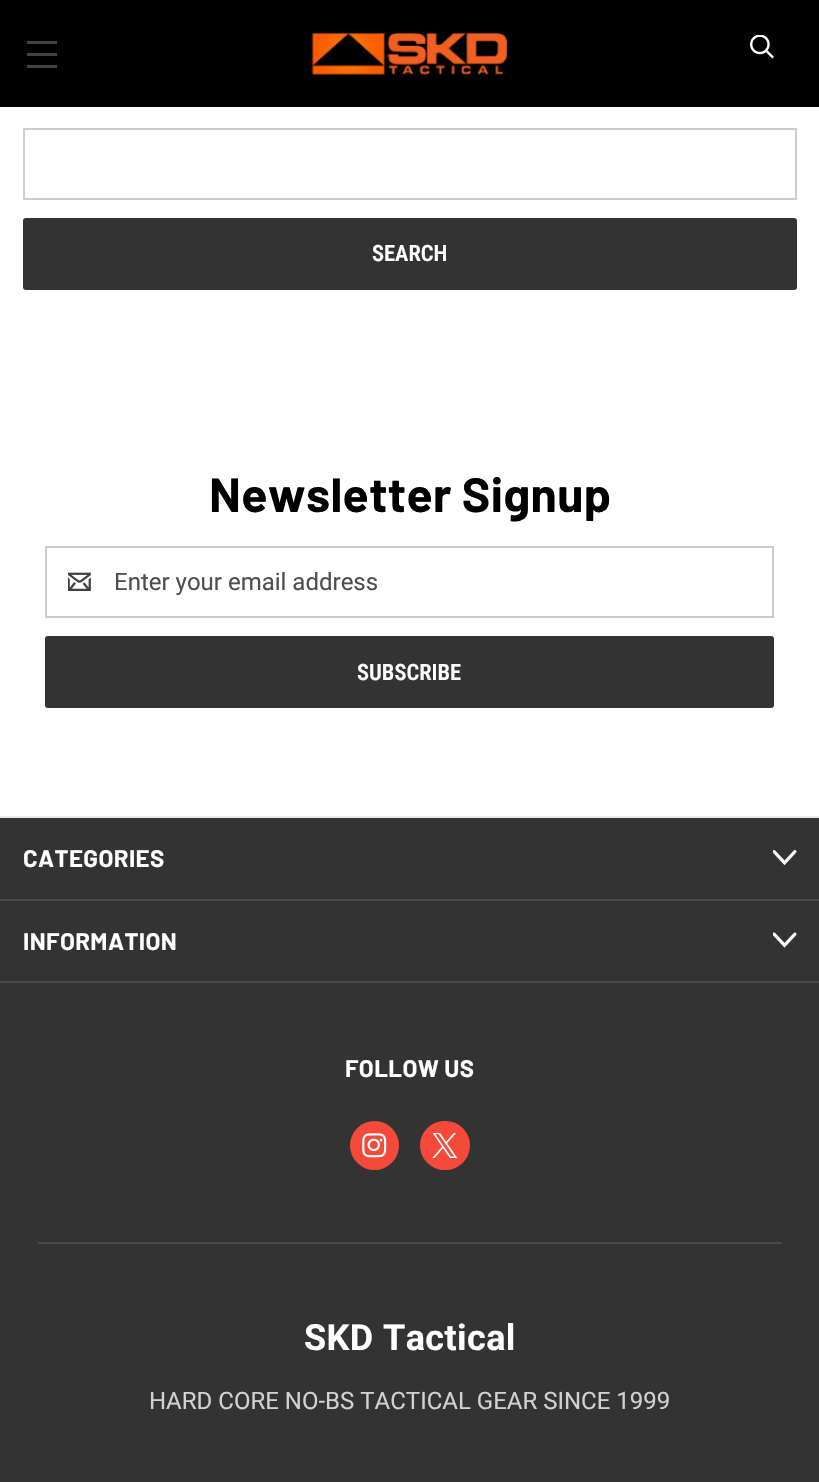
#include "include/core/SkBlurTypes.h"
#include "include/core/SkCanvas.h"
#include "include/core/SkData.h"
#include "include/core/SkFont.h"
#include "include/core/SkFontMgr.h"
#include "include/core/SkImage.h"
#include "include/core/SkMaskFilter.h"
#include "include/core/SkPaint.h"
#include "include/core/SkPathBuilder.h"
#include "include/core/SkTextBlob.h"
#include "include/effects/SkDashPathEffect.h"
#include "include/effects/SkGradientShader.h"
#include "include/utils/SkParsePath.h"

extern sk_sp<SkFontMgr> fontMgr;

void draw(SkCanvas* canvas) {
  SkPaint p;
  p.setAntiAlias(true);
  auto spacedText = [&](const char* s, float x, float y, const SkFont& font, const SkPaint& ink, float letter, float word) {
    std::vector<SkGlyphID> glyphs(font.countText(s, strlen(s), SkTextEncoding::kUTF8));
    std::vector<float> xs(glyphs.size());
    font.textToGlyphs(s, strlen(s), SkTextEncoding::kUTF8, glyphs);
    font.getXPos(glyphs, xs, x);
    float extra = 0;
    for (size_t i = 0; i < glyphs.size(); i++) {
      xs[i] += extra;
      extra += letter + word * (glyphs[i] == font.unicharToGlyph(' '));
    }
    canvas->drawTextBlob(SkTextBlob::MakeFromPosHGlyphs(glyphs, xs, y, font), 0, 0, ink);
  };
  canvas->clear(SK_ColorWHITE);
  p.setColor(SK_ColorBLACK);
  canvas->drawRect(SkRect::MakeLTRB(0, 0, 819, 107), p);
  canvas->drawImageRect(SkImages::DeferredFromEncodedData(SkData::MakeFromFileName("images/1.png")), SkRect::MakeLTRB(311, 32, 508, 75), SkSamplingOptions());
  canvas->drawImageRect(SkImages::DeferredFromEncodedData(SkData::MakeFromFileName("images/2.png")), SkRect::MakeLTRB(750, 35, 774, 59), SkSamplingOptions());
  p.setColor(SkColorSetRGB(66, 66, 66));
  canvas->drawRect(SkRect::MakeLTRB(27, 53, 57, 56), p);
  canvas->drawRect(SkRect::MakeLTRB(27, 41, 57, 44), p);
  canvas->drawRect(SkRect::MakeLTRB(27, 65, 57, 68), p);
  p.setStyle(SkPaint::kStroke_Style);
  p.setStrokeWidth(2);
  p.setColor(SkColorSetRGB(204, 204, 204));
  canvas->drawRect(SkRect::MakeLTRB(24, 129, 796, 199), p);
  p.setStyle(SkPaint::kFill_Style);
  p.setColor(SkColorSetRGB(51, 51, 51));
  canvas->drawRoundRect(SkRect::MakeLTRB(23, 218, 797, 290), 3, 3, p);
  p.setStyle(SkPaint::kStroke_Style);
  p.setColor(SkColorSetRGB(204, 204, 204));
  canvas->drawRect(SkRect::MakeLTRB(46, 547, 773, 617), p);
  canvas->drawImageRect(SkImages::DeferredFromEncodedData(SkData::MakeFromFileName("images/3.png")), SkRect::MakeLTRB(68, 572, 91, 591), SkSamplingOptions());
  p.setStyle(SkPaint::kFill_Style);
  p.setColor(SkColorSetRGB(51, 51, 51));
  canvas->drawRoundRect(SkRect::MakeLTRB(45, 636, 774, 708), 3, 3, p);
  canvas->drawRect(SkRect::MakeLTRB(0, 818, 819, 1482), p);
  p.setColor(SkColorSetRGB(235, 235, 235));
  canvas->drawRect(SkRect::MakeLTRB(0, 816, 819, 818), p);
  p.setColor(SkColorSetRGB(74, 74, 74));
  canvas->drawRect(SkRect::MakeLTRB(0, 899, 819, 901), p);
  canvas->drawImageRect(SkImages::DeferredFromEncodedData(SkData::MakeFromFileName("images/4.png")), SkRect::MakeLTRB(773, 850, 797, 865), SkSamplingOptions());
  canvas->drawRect(SkRect::MakeLTRB(0, 981, 819, 983), p);
  canvas->drawImageRect(SkImages::DeferredFromEncodedData(SkData::MakeFromFileName("images/5.png")), SkRect::MakeLTRB(773, 932, 797, 948), SkSamplingOptions());
  canvas->drawRect(SkRect::MakeLTRB(38, 1242, 782, 1244), p);
  p.setColor(SkColorSetRGB(245, 74, 58));
  canvas->drawCircle(374.5f, 1145.5f, 24.5f, p);
  canvas->drawImageRect(SkImages::DeferredFromEncodedData(SkData::MakeFromFileName("images/6.png")), SkRect::MakeLTRB(362, 1133, 387, 1158), SkSamplingOptions());
  canvas->drawRoundRect(SkRect::MakeLTRB(420, 1121, 470, 1170), 24.5f, 24.5f, p);
  canvas->drawImageRect(SkImages::DeferredFromEncodedData(SkData::MakeFromFileName("images/7.png")), SkRect::MakeLTRB(432, 1133, 458, 1158), SkSamplingOptions());
  SkFont font1(fontMgr->matchFamilyStyle("Roboto Condensed", SkFontStyle(600, SkFontStyle::kNormal_Width, SkFontStyle::kUpright_Slant)), 22.5f);
  font1.setSubpixel(true);
  p.setColor(SK_ColorWHITE);
  canvas->drawString("SEARCH", 372, 261, font1, p);
  SkFont font2(fontMgr->matchFamilyStyle("Barlow", SkFontStyle::Bold()), 48);
  font2.setSubpixel(true);
  p.setColor(SK_ColorBLACK);
  spacedText("Newsletter Signup", 209, 512, font2, p, 0.4f, 0);
  SkFont font3(fontMgr->matchFamilyStyle("Roboto", SkFontStyle::Normal()), 24);
  font3.setSubpixel(true);
  p.setColor(SkColorSetRGB(78, 78, 78));
  canvas->drawString("Enter your email address", 114, 590, font3, p);
  p.setColor(SK_ColorWHITE);
  canvas->drawString("SUBSCRIBE", 357, 680, font1, p);
  SkFont font4(fontMgr->matchFamilyStyle("Barlow", SkFontStyle::Bold()), 24);
  font4.setSubpixel(true);
  spacedText("CATEGORIES", 23, 867, font4, p, 0.4f, 0);
  spacedText("INFORMATION", 23, 950, font4, p, 0.4f, 0);
  spacedText("FOLLOW US", 345, 1077, font4, p, 0.4f, 0);
  SkFont font5(fontMgr->matchFamilyStyle("Roboto", SkFontStyle::Bold()), 36);
  font5.setSubpixel(true);
  spacedText("SKD Tactical", 304, 1350, font5, p, 0.4f, 0);
  p.setColor(SkColorSetRGB(210, 210, 210));
  canvas->drawString("HARD CORE NO-BS TACTICAL GEAR SINCE 1999", 149, 1409, font3, p);
}
